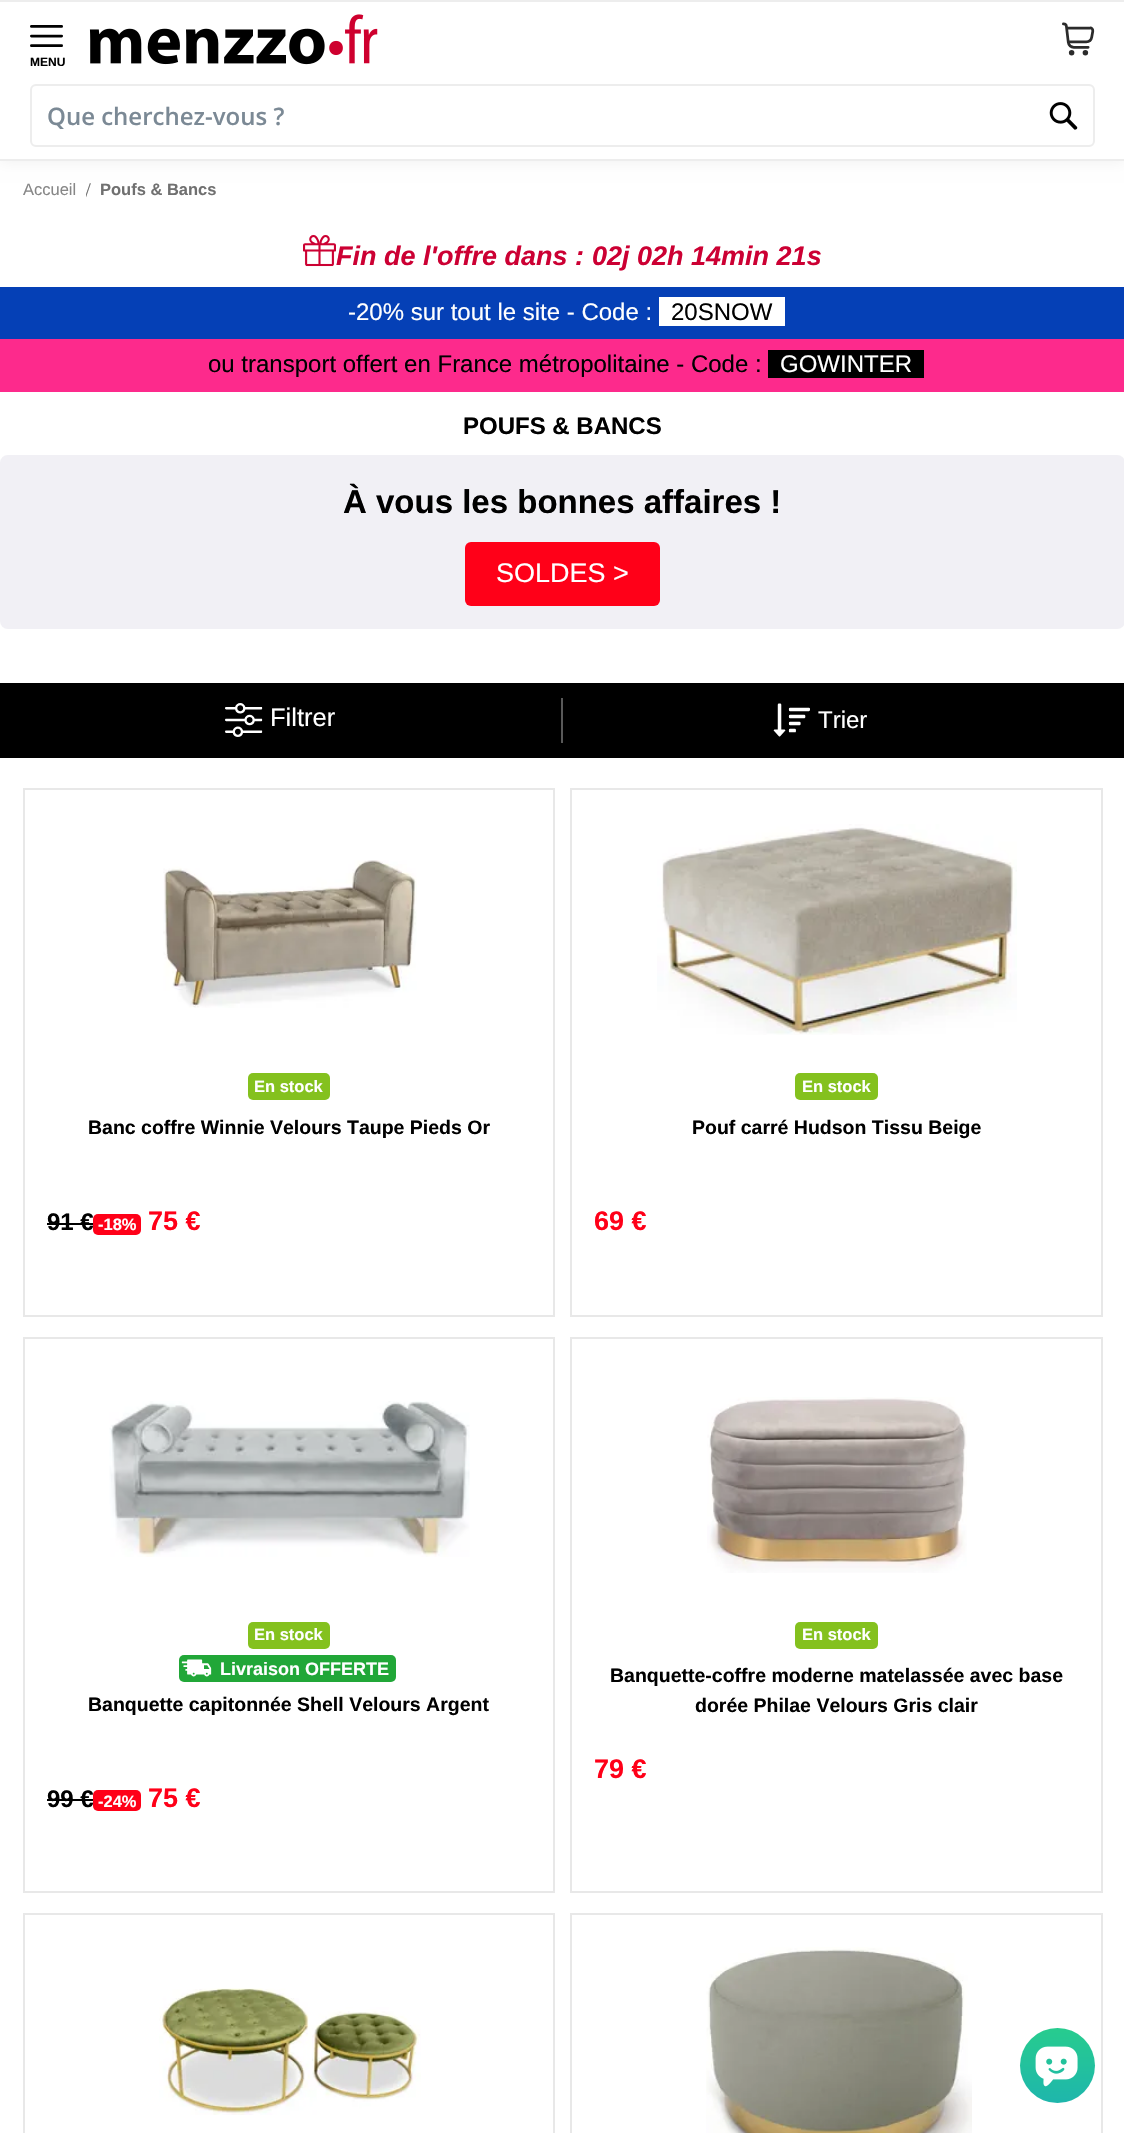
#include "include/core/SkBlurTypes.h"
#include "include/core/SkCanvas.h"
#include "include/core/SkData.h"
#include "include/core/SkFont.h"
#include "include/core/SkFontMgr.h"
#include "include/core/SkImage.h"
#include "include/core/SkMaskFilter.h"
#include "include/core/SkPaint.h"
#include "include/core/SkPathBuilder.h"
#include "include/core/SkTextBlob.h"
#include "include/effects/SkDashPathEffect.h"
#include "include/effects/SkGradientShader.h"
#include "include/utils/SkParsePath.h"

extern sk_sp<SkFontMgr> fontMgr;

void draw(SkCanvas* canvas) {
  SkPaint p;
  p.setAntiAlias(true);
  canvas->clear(SK_ColorWHITE);
  p.setColor(SkColorSetRGB(241, 241, 241));
  p.setMaskFilter(SkMaskFilter::MakeBlur(kNormal_SkBlurStyle, 7));
  canvas->drawRect(SkRect::MakeLTRB(0, 2, 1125, 162), p);
  p.setMaskFilter(nullptr);
  p.setColor(SK_ColorWHITE);
  canvas->drawRect(SkRect::MakeLTRB(0, 2, 1124, 159), p);
  p.setColor(SkColorSetRGB(237, 237, 237));
  canvas->drawRect(SkRect::MakeLTRB(0, 0, 1124, 2), p);
  canvas->drawRect(SkRect::MakeLTRB(0, 159, 1124, 161), p);
  canvas->drawImageRect(SkImages::DeferredFromEncodedData(SkData::MakeFromFileName("images/1.png")), SkRect::MakeLTRB(89, 14, 378, 65), SkSamplingOptions());
  canvas->drawImageRect(SkImages::DeferredFromEncodedData(SkData::MakeFromFileName("images/2.png")), SkRect::MakeLTRB(1062, 22, 1095, 56), SkSamplingOptions());
  canvas->drawImageRect(SkImages::DeferredFromEncodedData(SkData::MakeFromFileName("images/3.png")), SkRect::MakeLTRB(30, 25, 63, 47), SkSamplingOptions());
  p.setStyle(SkPaint::kStroke_Style);
  p.setStrokeWidth(2);
  canvas->drawRoundRect(SkRect::MakeLTRB(31, 85, 1094, 146), 5, 5, p);
  canvas->drawImageRect(SkImages::DeferredFromEncodedData(SkData::MakeFromFileName("images/4.png")), SkRect::MakeLTRB(1049, 102, 1078, 130), SkSamplingOptions());
  canvas->drawImageRect(SkImages::DeferredFromEncodedData(SkData::MakeFromFileName("images/5.png")), SkRect::MakeLTRB(303, 234, 336, 267), SkSamplingOptions());
  p.setStyle(SkPaint::kFill_Style);
  p.setColor(SkColorSetRGB(5, 64, 182));
  canvas->drawRect(SkRect::MakeLTRB(0, 287, 1124, 339), p);
  p.setColor(SK_ColorWHITE);
  canvas->drawRect(SkRect::MakeLTRB(659, 297, 785, 326), p);
  p.setColor(SkColorSetRGB(253, 42, 140));
  canvas->drawRect(SkRect::MakeLTRB(0, 339, 1124, 392), p);
  p.setColor(SK_ColorBLACK);
  canvas->drawRect(SkRect::MakeLTRB(768, 350, 924, 378), p);
  p.setColor(SkColorSetRGB(241, 240, 245));
  canvas->drawRoundRect(SkRect::MakeLTRB(0, 455, 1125, 629), 8, 8, p);
  p.setColor(SkColorSetRGB(255, 0, 24));
  canvas->drawRoundRect(SkRect::MakeLTRB(465, 542, 660, 606), 6, 6, p);
  p.setColor(SK_ColorBLACK);
  canvas->drawRect(SkRect::MakeLTRB(0, 683, 1124, 758), p);
  p.setColor(SkColorSetRGB(89, 89, 89));
  canvas->drawRect(SkRect::MakeLTRB(561, 698, 563, 743), p);
  canvas->drawImageRect(SkImages::DeferredFromEncodedData(SkData::MakeFromFileName("images/6.png")), SkRect::MakeLTRB(225, 703, 263, 737), SkSamplingOptions());
  canvas->drawImageRect(SkImages::DeferredFromEncodedData(SkData::MakeFromFileName("images/7.png")), SkRect::MakeLTRB(773, 703, 810, 737), SkSamplingOptions());
  p.setStyle(SkPaint::kStroke_Style);
  p.setColor(SkColorSetRGB(232, 232, 232));
  canvas->drawRect(SkRect::MakeLTRB(24, 789, 554, 1316), p);
  canvas->drawImageRect(SkImages::DeferredFromEncodedData(SkData::MakeFromFileName("images/8.png")), SkRect::MakeLTRB(163, 860, 417, 1008), SkSamplingOptions());
  p.setStyle(SkPaint::kFill_Style);
  p.setColor(SkColorSetRGB(132, 193, 30));
  canvas->drawRoundRect(SkRect::MakeLTRB(248, 1073, 330, 1100), 5, 5, p);
  p.setColor(SK_ColorBLACK);
  canvas->drawRect(SkRect::MakeLTRB(47, 1223, 93, 1225), p);
  p.setColor(SkColorSetRGB(255, 0, 24));
  canvas->drawRoundRect(SkRect::MakeLTRB(93, 1214, 141, 1235), 5, 5, p);
  p.setStyle(SkPaint::kStroke_Style);
  p.setColor(SkColorSetRGB(232, 232, 232));
  canvas->drawRect(SkRect::MakeLTRB(571, 789, 1102, 1316), p);
  canvas->drawImageRect(SkImages::DeferredFromEncodedData(SkData::MakeFromFileName("images/9.png")), SkRect::MakeLTRB(657, 824, 1017, 1035), SkSamplingOptions());
  p.setStyle(SkPaint::kFill_Style);
  p.setColor(SkColorSetRGB(132, 193, 30));
  canvas->drawRoundRect(SkRect::MakeLTRB(795, 1073, 878, 1100), 5, 5, p);
  p.setStyle(SkPaint::kStroke_Style);
  p.setColor(SkColorSetRGB(232, 232, 232));
  canvas->drawRect(SkRect::MakeLTRB(24, 1338, 554, 1892), p);
  canvas->drawImageRect(SkImages::DeferredFromEncodedData(SkData::MakeFromFileName("images/10.png")), SkRect::MakeLTRB(109, 1401, 470, 1557), SkSamplingOptions());
  p.setStyle(SkPaint::kFill_Style);
  p.setColor(SkColorSetRGB(132, 193, 30));
  canvas->drawRoundRect(SkRect::MakeLTRB(248, 1622, 330, 1649), 5, 5, p);
  p.setColor(SkColorSetRGB(33, 167, 56));
  canvas->drawRoundRect(SkRect::MakeLTRB(179, 1655, 396, 1682), 5, 5, p);
  canvas->drawImageRect(SkImages::DeferredFromEncodedData(SkData::MakeFromFileName("images/11.png")), SkRect::MakeLTRB(181, 1659, 212, 1677), SkSamplingOptions());
  p.setColor(SK_ColorBLACK);
  canvas->drawRect(SkRect::MakeLTRB(47, 1799, 93, 1801), p);
  p.setColor(SkColorSetRGB(255, 0, 24));
  canvas->drawRoundRect(SkRect::MakeLTRB(93, 1790, 141, 1811), 5, 5, p);
  p.setStyle(SkPaint::kStroke_Style);
  p.setColor(SkColorSetRGB(232, 232, 232));
  canvas->drawRect(SkRect::MakeLTRB(571, 1338, 1102, 1892), p);
  canvas->drawImageRect(SkImages::DeferredFromEncodedData(SkData::MakeFromFileName("images/12.png")), SkRect::MakeLTRB(707, 1397, 967, 1573), SkSamplingOptions());
  p.setStyle(SkPaint::kFill_Style);
  p.setColor(SkColorSetRGB(132, 193, 30));
  canvas->drawRoundRect(SkRect::MakeLTRB(795, 1622, 878, 1649), 5, 5, p);
  p.setStyle(SkPaint::kStroke_Style);
  p.setColor(SkColorSetRGB(232, 232, 232));
  canvas->drawRect(SkRect::MakeLTRB(24, 1914, 554, 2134), p);
  canvas->drawImageRect(SkImages::DeferredFromEncodedData(SkData::MakeFromFileName("images/13.png")), SkRect::MakeLTRB(159, 1988, 421, 2115), SkSamplingOptions());
  canvas->drawRect(SkRect::MakeLTRB(571, 1914, 1102, 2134), p);
  canvas->drawImageRect(SkImages::DeferredFromEncodedData(SkData::MakeFromFileName("images/14.png")), SkRect::MakeLTRB(706, 1947, 972, 2133), SkSamplingOptions());
  p.setStyle(SkPaint::kFill_Style);
  {
    const SkColor colors[] = {SkColorSetRGB(30, 182, 172), SkColorSetRGB(39, 204, 142)};
    const float stops[] = {0, 1};
    const SkPoint ends[] = {{1058, 2103}, {1058, 2028}};
    p.setShader(SkGradientShader::MakeLinear(ends, colors, stops, 2, SkTileMode::kClamp));
    p.setAlpha(255);
  }
  canvas->drawCircle(1057.5f, 2065.5f, 37.5f, p);
  canvas->drawImageRect(SkImages::DeferredFromEncodedData(SkData::MakeFromFileName("images/15.png")), SkRect::MakeLTRB(1035, 2046, 1078, 2087), SkSamplingOptions());
  SkFont font1(fontMgr->matchFamilyStyle("Liberation Sans", SkFontStyle::Bold()), 12);
  font1.setSubpixel(true);
  p.setShader(nullptr);
  p.setColor(SK_ColorBLACK);
  canvas->drawString("MENU", 30, 66, font1, p);
  SkFont font2(fontMgr->matchFamilyStyle("Open Sans", SkFontStyle(600, SkFontStyle::kNormal_Width, SkFontStyle::kUpright_Slant)), 24);
  font2.setSubpixel(true);
  p.setColor(SkColorSetRGB(123, 137, 149));
  canvas->drawString("Que cherchez-vous ?", 47, 125, font2, p);
  SkFont font3(fontMgr->matchFamilyStyle("Liberation Sans", SkFontStyle::Normal()), 16.5f);
  font3.setSubpixel(true);
  p.setColor(SkColorSetRGB(135, 135, 135));
  canvas->drawString("Accueil", 23, 195, font3, p);
  canvas->save();
  canvas->clipRect(SkRect::MakeLTRB(86, 177, 91, 198));
  SkFont font4(fontMgr->matchFamilyStyle("Liberation Serif", SkFontStyle::Normal()), 21);
  font4.setSubpixel(true);
  p.setColor(SkColorSetRGB(112, 112, 112));
  canvas->drawString("/", 85, 197, font4, p);
  canvas->restore();
  SkFont font5(fontMgr->matchFamilyStyle("Liberation Sans", SkFontStyle::Bold()), 16.5f);
  font5.setSubpixel(true);
  canvas->drawString("Poufs & Bancs", 100, 195, font5, p);
  SkFont font6(fontMgr->matchFamilyStyle("Liberation Sans", SkFontStyle::BoldItalic()), 27);
  font6.setSubpixel(true);
  p.setColor(SkColorSetRGB(204, 0, 51));
  canvas->drawString("Fin de l'offre dans :", 336, 265, font6, p);
  canvas->drawString("02j 02h 14min 21s", 592, 265, font6, p);
  SkFont font7(fontMgr->matchFamilyStyle("Liberation Sans", SkFontStyle::Normal()), 24);
  font7.setSubpixel(true);
  p.setColor(SK_ColorWHITE);
  canvas->drawString("-20% sur tout le site - Code :", 348, 320, font7, p);
  p.setColor(SK_ColorBLACK);
  canvas->drawString("20SNOW", 671, 320, font7, p);
  canvas->drawString("ou transport offert en France métropolitaine - Code :", 208, 372, font7, p);
  p.setColor(SK_ColorWHITE);
  canvas->drawString("GOWINTER", 780, 372, font7, p);
  SkFont font8(fontMgr->matchFamilyStyle("Liberation Sans", SkFontStyle::Bold()), 24);
  font8.setSubpixel(true);
  p.setColor(SK_ColorBLACK);
  canvas->drawString("POUFS & BANCS", 463, 434, font8, p);
  SkFont font9(fontMgr->matchFamilyStyle("Liberation Sans", SkFontStyle::Bold()), 33);
  font9.setSubpixel(true);
  canvas->drawString("À vous les bonnes affaires !", 343, 513, font9, p);
  SkFont font10(fontMgr->matchFamilyStyle("Liberation Sans", SkFontStyle::Normal()), 27);
  font10.setSubpixel(true);
  p.setColor(SK_ColorWHITE);
  canvas->drawString("SOLDES >", 496, 582, font10, p);
  SkFont font11(fontMgr->matchFamilyStyle("Liberation Sans", SkFontStyle::Normal()), 25.5f);
  font11.setSubpixel(true);
  canvas->drawString("Filtrer", 270, 726, font11, p);
  canvas->drawString("Trier", 818, 728, font7, p);
  canvas->drawString("En stock", 254, 1092, font5, p);
  SkFont font12(fontMgr->matchFamilyStyle("Liberation Sans", SkFontStyle::Bold()), 19.5f);
  font12.setSubpixel(true);
  p.setColor(SK_ColorBLACK);
  canvas->drawString("Banc coffre Winnie Velours Taupe Pieds Or", 88, 1134, font12, p);
  canvas->drawString("91 €", 47, 1230, font8, p);
  p.setColor(SK_ColorWHITE);
  canvas->drawString("-18%", 98, 1230, font5, p);
  SkFont font13(fontMgr->matchFamilyStyle("Liberation Sans", SkFontStyle::Bold()), 27);
  font13.setSubpixel(true);
  p.setColor(SkColorSetRGB(255, 0, 24));
  canvas->drawString("75 €", 148, 1230, font13, p);
  p.setColor(SK_ColorWHITE);
  canvas->drawString("En stock", 802, 1092, font5, p);
  p.setColor(SK_ColorBLACK);
  canvas->drawString("Pouf carré Hudson Tissu Beige", 692, 1134, font12, p);
  p.setColor(SkColorSetRGB(255, 0, 24));
  canvas->drawString("69 €", 594, 1230, font13, p);
  p.setColor(SK_ColorWHITE);
  canvas->drawString("En stock", 254, 1640, font5, p);
  SkFont font14(fontMgr->matchFamilyStyle("Liberation Sans", SkFontStyle::Bold()), 18);
  font14.setSubpixel(true);
  canvas->drawString("Livraison OFFERTE", 220, 1675, font14, p);
  p.setColor(SK_ColorBLACK);
  canvas->drawString("Banquette capitonnée Shell Velours Argent", 88, 1711, font12, p);
  canvas->drawString("99 €", 47, 1807, font8, p);
  p.setColor(SK_ColorWHITE);
  canvas->drawString("-24%", 98, 1807, font5, p);
  p.setColor(SkColorSetRGB(255, 0, 24));
  canvas->drawString("75 €", 148, 1807, font13, p);
  p.setColor(SK_ColorWHITE);
  canvas->drawString("En stock", 802, 1640, font5, p);
  p.setColor(SK_ColorBLACK);
  canvas->drawString("Banquette-coffre moderne matelassée avec base", 610, 1682, font12, p);
  canvas->drawString("dorée Philae Velours Gris clair", 695, 1712, font12, p);
  p.setColor(SkColorSetRGB(255, 0, 24));
  canvas->drawString("79 €", 594, 1778, font13, p);
}
